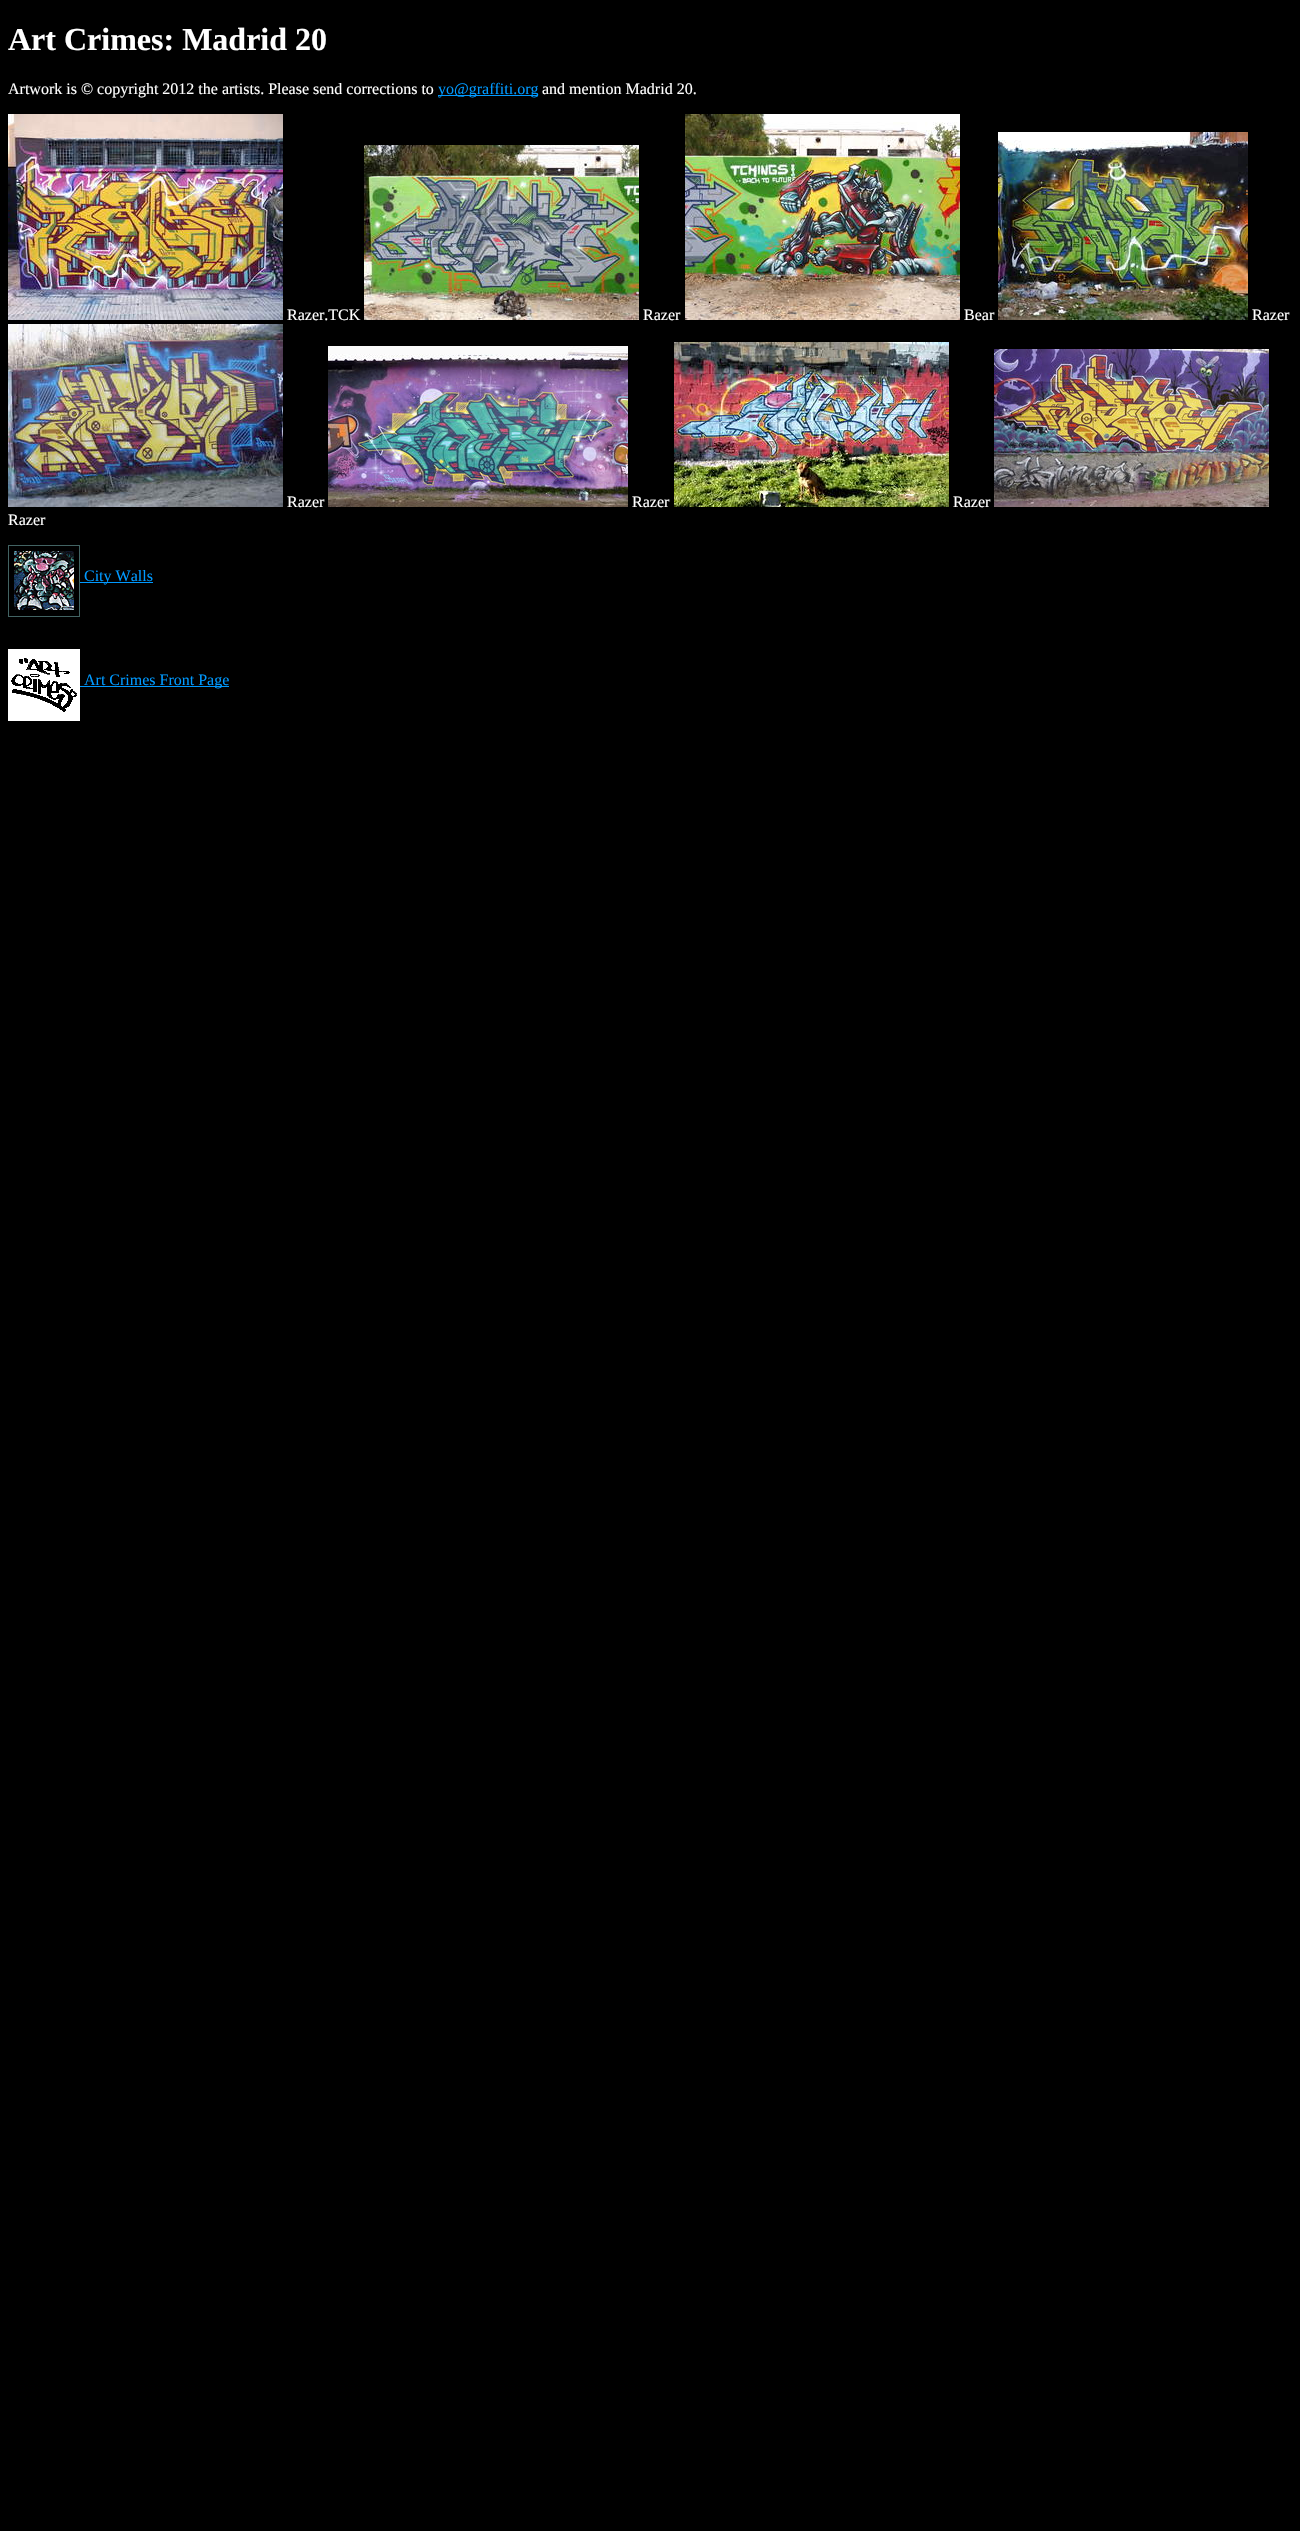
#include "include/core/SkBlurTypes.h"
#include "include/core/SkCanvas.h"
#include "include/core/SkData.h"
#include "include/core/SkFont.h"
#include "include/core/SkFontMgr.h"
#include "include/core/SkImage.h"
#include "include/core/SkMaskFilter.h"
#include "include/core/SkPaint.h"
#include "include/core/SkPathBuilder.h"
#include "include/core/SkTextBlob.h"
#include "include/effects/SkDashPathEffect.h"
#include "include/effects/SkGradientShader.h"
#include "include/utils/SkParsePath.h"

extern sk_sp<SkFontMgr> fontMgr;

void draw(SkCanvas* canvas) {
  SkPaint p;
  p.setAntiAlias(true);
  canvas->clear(SK_ColorBLACK);
  p.setColor(SkColorSetRGB(0, 153, 255));
  canvas->drawRect(SkRect::MakeLTRB(438, 95, 538, 96), p);
  canvas->drawImageRect(SkImages::DeferredFromEncodedData(SkData::MakeFromFileName("images/1.png")), SkRect::MakeLTRB(8, 114, 283, 320), SkSamplingOptions());
  canvas->drawImageRect(SkImages::DeferredFromEncodedData(SkData::MakeFromFileName("images/2.png")), SkRect::MakeLTRB(364, 145, 639, 320), SkSamplingOptions());
  canvas->drawImageRect(SkImages::DeferredFromEncodedData(SkData::MakeFromFileName("images/3.png")), SkRect::MakeLTRB(685, 114, 960, 320), SkSamplingOptions());
  canvas->drawImageRect(SkImages::DeferredFromEncodedData(SkData::MakeFromFileName("images/4.png")), SkRect::MakeLTRB(998, 132, 1248, 320), SkSamplingOptions());
  canvas->drawImageRect(SkImages::DeferredFromEncodedData(SkData::MakeFromFileName("images/5.png")), SkRect::MakeLTRB(8, 324, 283, 507), SkSamplingOptions());
  canvas->drawImageRect(SkImages::DeferredFromEncodedData(SkData::MakeFromFileName("images/6.png")), SkRect::MakeLTRB(328, 346, 628, 507), SkSamplingOptions());
  canvas->drawImageRect(SkImages::DeferredFromEncodedData(SkData::MakeFromFileName("images/7.png")), SkRect::MakeLTRB(674, 342, 949, 507), SkSamplingOptions());
  canvas->drawImageRect(SkImages::DeferredFromEncodedData(SkData::MakeFromFileName("images/8.png")), SkRect::MakeLTRB(994, 349, 1269, 507), SkSamplingOptions());
  canvas->drawImageRect(SkImages::DeferredFromEncodedData(SkData::MakeFromFileName("images/9.png")), SkRect::MakeLTRB(8, 545, 80, 617), SkSamplingOptions());
  canvas->drawRect(SkRect::MakeLTRB(80, 582, 153, 583), p);
  canvas->drawImageRect(SkImages::DeferredFromEncodedData(SkData::MakeFromFileName("images/10.png")), SkRect::MakeLTRB(8, 649, 80, 721), SkSamplingOptions());
  canvas->drawRect(SkRect::MakeLTRB(80, 686, 229, 687), p);
  SkFont font1(fontMgr->matchFamilyStyle("Liberation Serif", SkFontStyle::Bold()), 32);
  font1.setSubpixel(true);
  p.setColor(SK_ColorWHITE);
  canvas->drawString("Art Crimes: Madrid 20", 8, 50, font1, p);
  SkFont font2(fontMgr->matchFamilyStyle("Liberation Serif", SkFontStyle::Normal()), 16);
  font2.setSubpixel(true);
  canvas->drawString("Artwork is © copyright 2012 the artists. Please send corrections to", 8, 94, font2, p);
  p.setColor(SkColorSetRGB(0, 153, 255));
  canvas->drawString("yo@graffiti.org", 438, 94, font2, p);
  p.setColor(SK_ColorWHITE);
  canvas->drawString("and mention Madrid 20.", 542, 94, font2, p);
  canvas->drawString("Razer.TCK", 287, 320, font2, p);
  canvas->drawString("Razer", 643, 320, font2, p);
  canvas->drawString("Bear", 964, 320, font2, p);
  canvas->drawString("Razer", 1252, 320, font2, p);
  canvas->drawString("Razer", 287, 507, font2, p);
  canvas->drawString("Razer", 632, 507, font2, p);
  canvas->drawString("Razer", 953, 507, font2, p);
  canvas->drawString("Razer", 8, 525, font2, p);
  p.setColor(SkColorSetRGB(0, 153, 255));
  canvas->drawString("City Walls", 84, 581, font2, p);
  canvas->drawString("Art Crimes Front Page", 84, 685, font2, p);
}
